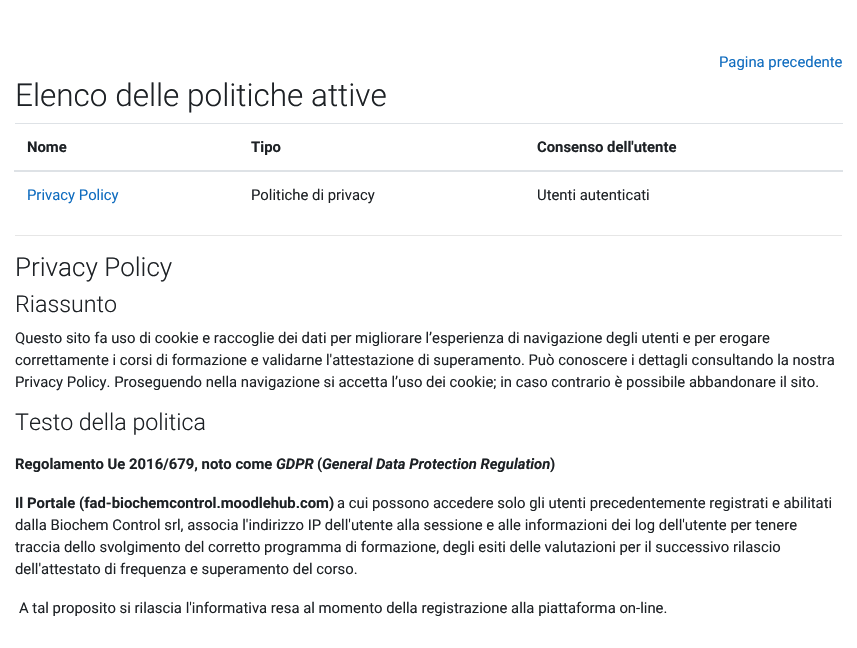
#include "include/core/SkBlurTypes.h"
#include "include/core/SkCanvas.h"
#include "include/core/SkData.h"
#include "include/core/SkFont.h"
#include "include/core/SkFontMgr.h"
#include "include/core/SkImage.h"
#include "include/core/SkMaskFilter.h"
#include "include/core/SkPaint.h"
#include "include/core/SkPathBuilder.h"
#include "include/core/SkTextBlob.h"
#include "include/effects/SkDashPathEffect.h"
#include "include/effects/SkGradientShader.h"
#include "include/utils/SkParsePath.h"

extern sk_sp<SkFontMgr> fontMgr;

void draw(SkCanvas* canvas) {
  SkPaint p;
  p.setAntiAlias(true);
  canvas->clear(SK_ColorWHITE);
  p.setColor(SkColorSetRGB(222, 226, 230));
  canvas->drawRect(SkRect::MakeLTRB(15, 123, 843, 124), p);
  canvas->drawRect(SkRect::MakeLTRB(14, 170, 843, 172), p);
  p.setColor(SkColorSetRGB(230, 230, 230));
  canvas->drawRect(SkRect::MakeLTRB(15, 235, 842, 236), p);
  SkFont font1(fontMgr->matchFamilyStyle("Roboto", SkFontStyle::Normal()), 14.85f);
  font1.setSubpixel(true);
  p.setColor(SkColorSetRGB(15, 108, 191));
  canvas->drawString("Pagina precedente", 719, 67, font1, p);
  SkFont font2(fontMgr->matchFamilyStyle("Roboto", SkFontStyle(300, SkFontStyle::kNormal_Width, SkFontStyle::kUpright_Slant)), 31.5f);
  font2.setSubpixel(true);
  p.setColor(SkColorSetRGB(29, 33, 37));
  canvas->drawString("Elenco delle politiche attive", 15, 106, font2, p);
  SkFont font3(fontMgr->matchFamilyStyle("Roboto", SkFontStyle::Bold()), 14.85f);
  font3.setSubpixel(true);
  canvas->drawString("Nome", 27, 152, font3, p);
  canvas->drawString("Tipo", 251, 152, font3, p);
  canvas->drawString("Consenso dell'utente", 537, 152, font3, p);
  p.setColor(SkColorSetRGB(15, 108, 191));
  canvas->drawString("Privacy Policy", 27, 200, font1, p);
  p.setColor(SkColorSetRGB(29, 33, 37));
  canvas->drawString("Politiche di privacy", 251, 200, font1, p);
  canvas->drawString("Utenti autenticati", 537, 200, font1, p);
  SkFont font4(fontMgr->matchFamilyStyle("Roboto", SkFontStyle(300, SkFontStyle::kNormal_Width, SkFontStyle::kUpright_Slant)), 26);
  font4.setSubpixel(true);
  canvas->drawString("Privacy Policy", 15, 276, font4, p);
  SkFont font5(fontMgr->matchFamilyStyle("Roboto", SkFontStyle(300, SkFontStyle::kNormal_Width, SkFontStyle::kUpright_Slant)), 23.25f);
  font5.setSubpixel(true);
  canvas->drawString("Riassunto", 15, 312, font5, p);
  canvas->drawString("Questo sito fa uso di cookie e raccoglie dei dati per migliorare l’esperienza di navigazione degli utenti e per erogare", 15, 343, font1, p);
  canvas->drawString("correttamente i corsi di formazione e validarne l'attestazione di superamento. Può conoscere i dettagli consultando la nostra", 15, 365, font1, p);
  canvas->drawString("Privacy Policy. Proseguendo nella navigazione si accetta l’uso dei cookie; in caso contrario è possibile abbandonare il sito.", 15, 387, font1, p);
  canvas->drawString("Testo della politica", 15, 430, font5, p);
  canvas->drawString("Regolamento Ue 2016/679, noto come", 15, 469, font3, p);
  SkFont font6(fontMgr->matchFamilyStyle("Roboto", SkFontStyle::BoldItalic()), 14.85f);
  font6.setSubpixel(true);
  canvas->drawString("GDPR", 276, 469, font6, p);
  canvas->drawString("(", 317, 469, font3, p);
  canvas->drawString("General Data Protection Regulation", 322, 469, font6, p);
  canvas->drawString(")", 550, 469, font3, p);
  canvas->drawString("Il Portale (fad-biochemcontrol.moodlehub.com)", 15, 508, font3, p);
  canvas->drawString("a cui possono accedere solo gli utenti precedentemente registrati e abilitati", 337, 508, font1, p);
  canvas->drawString("dalla Biochem Control srl, associa l'indirizzo IP dell'utente alla sessione e alle informazioni dei log dell'utente per tenere", 15, 530, font1, p);
  canvas->drawString("traccia dello svolgimento del corretto programma di formazione, degli esiti delle valutazioni per il successivo rilascio", 15, 552, font1, p);
  canvas->drawString("dell'attestato di frequenza e superamento del corso.", 15, 574, font1, p);
  canvas->drawString("A tal proposito si rilascia l'informativa resa al momento della registrazione alla piattaforma on-line.", 19, 613, font1, p);
}
